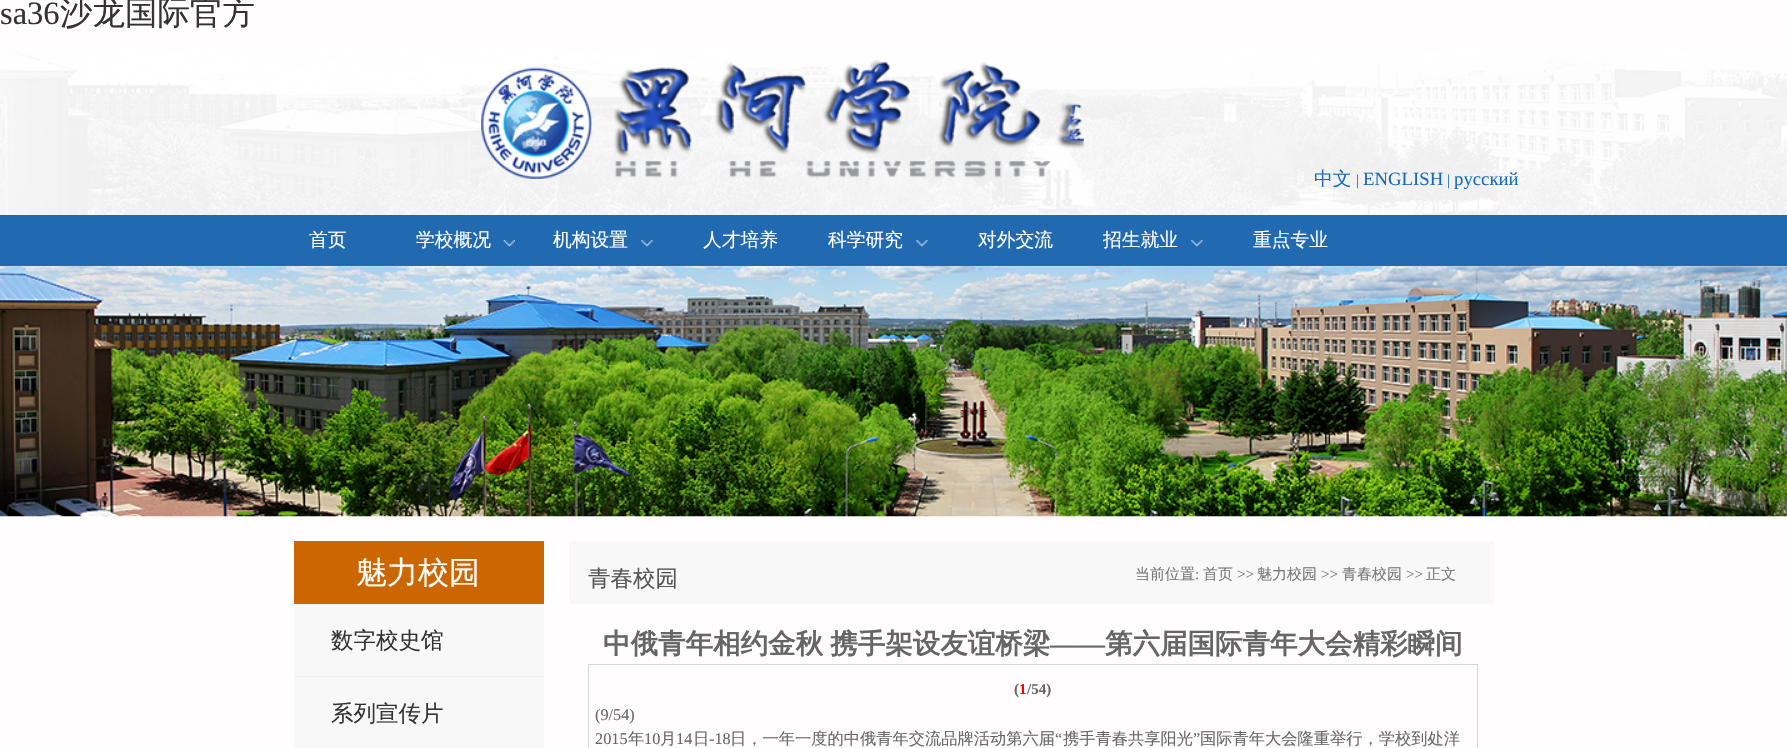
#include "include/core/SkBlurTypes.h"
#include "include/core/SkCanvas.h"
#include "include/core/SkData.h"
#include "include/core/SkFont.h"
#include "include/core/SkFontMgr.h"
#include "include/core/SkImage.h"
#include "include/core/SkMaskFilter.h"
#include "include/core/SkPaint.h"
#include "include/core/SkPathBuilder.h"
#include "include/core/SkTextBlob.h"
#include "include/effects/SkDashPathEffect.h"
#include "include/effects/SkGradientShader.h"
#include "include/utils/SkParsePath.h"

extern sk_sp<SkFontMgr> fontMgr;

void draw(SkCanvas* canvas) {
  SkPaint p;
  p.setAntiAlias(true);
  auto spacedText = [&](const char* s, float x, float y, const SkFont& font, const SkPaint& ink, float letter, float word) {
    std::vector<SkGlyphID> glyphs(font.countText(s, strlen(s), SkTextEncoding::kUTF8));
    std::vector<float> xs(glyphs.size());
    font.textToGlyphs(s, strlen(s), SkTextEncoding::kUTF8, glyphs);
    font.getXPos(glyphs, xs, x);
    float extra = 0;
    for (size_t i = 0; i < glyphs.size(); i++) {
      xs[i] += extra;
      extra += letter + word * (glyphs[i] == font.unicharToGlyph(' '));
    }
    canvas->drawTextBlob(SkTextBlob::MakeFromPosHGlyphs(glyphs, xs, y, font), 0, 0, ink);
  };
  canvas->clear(SkColorSetRGB(255, 253, 253));
  canvas->drawImageRect(SkImages::DeferredFromEncodedData(SkData::MakeFromFileName("images/1.png")), SkRect::MakeLTRB(0, 50, 1787, 215), SkSamplingOptions());
  canvas->drawImageRect(SkImages::DeferredFromEncodedData(SkData::MakeFromFileName("images/2.png")), SkRect::MakeLTRB(481, 59, 1084, 179), SkSamplingOptions());
  p.setColor(SkColorSetRGB(33, 105, 177));
  canvas->drawRect(SkRect::MakeLTRB(0, 215, 1787, 266), p);
  canvas->drawImageRect(SkImages::DeferredFromEncodedData(SkData::MakeFromFileName("images/3.png")), SkRect::MakeLTRB(503, 240, 515, 247), SkSamplingOptions());
  canvas->drawImageRect(SkImages::DeferredFromEncodedData(SkData::MakeFromFileName("images/4.png")), SkRect::MakeLTRB(641, 240, 653, 247), SkSamplingOptions());
  canvas->drawImageRect(SkImages::DeferredFromEncodedData(SkData::MakeFromFileName("images/4.png")), SkRect::MakeLTRB(916, 240, 928, 247), SkSamplingOptions());
  canvas->drawImageRect(SkImages::DeferredFromEncodedData(SkData::MakeFromFileName("images/4.png")), SkRect::MakeLTRB(1191, 240, 1203, 247), SkSamplingOptions());
  canvas->drawImageRect(SkImages::DeferredFromEncodedData(SkData::MakeFromFileName("images/5.png")), SkRect::MakeLTRB(0, 266, 1787, 517), SkSamplingOptions());
  p.setColor(SkColorSetRGB(248, 248, 248));
  canvas->drawRect(SkRect::MakeLTRB(294, 604, 544, 748), p);
  p.setColor(SkColorSetRGB(204, 102, 0));
  canvas->drawRect(SkRect::MakeLTRB(294, 541, 544, 604), p);
  p.setColor(SkColorSetRGB(240, 240, 240));
  canvas->drawRect(SkRect::MakeLTRB(294, 676, 544, 677), p);
  p.setColor(SkColorSetRGB(248, 248, 248));
  canvas->drawRect(SkRect::MakeLTRB(569, 541, 1494, 604), p);
  p.setStyle(SkPaint::kStroke_Style);
  p.setStrokeWidth(1);
  p.setColor(SkColorSetRGB(214, 214, 214));
  canvas->drawRect(SkRect::MakeLTRB(588.5f, 664.5f, 1477.5f, 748.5f), p);
  SkFont font1(fontMgr->matchFamilyStyle("Liberation Serif", SkFontStyle::Normal()), 32.5f);
  font1.setSubpixel(true);
  p.setStyle(SkPaint::kFill_Style);
  p.setColor(SkColorSetRGB(51, 51, 51));
  canvas->drawString("sa36", 0, 24, font1, p);
  SkFont font2(fontMgr->matchFamilyStyle("WenQuanYi Zen Hei", SkFontStyle(500, SkFontStyle::kNormal_Width, SkFontStyle::kUpright_Slant)), 32.5f);
  font2.setSubpixel(true);
  canvas->drawString("沙龙国际官方", 60, 24, font2, p);
  SkFont font3(fontMgr->matchFamilyStyle("WenQuanYi Zen Hei", SkFontStyle(500, SkFontStyle::kNormal_Width, SkFontStyle::kUpright_Slant)), 18.75f);
  font3.setSubpixel(true);
  p.setColor(SkColorSetRGB(26, 107, 181));
  canvas->drawString("中文", 1314, 185, font3, p);
  SkFont font4(fontMgr->matchFamilyStyle("Liberation Serif", SkFontStyle::Normal()), 15);
  font4.setSubpixel(true);
  canvas->drawString("|", 1356, 185, font4, p);
  SkFont font5(fontMgr->matchFamilyStyle("Liberation Serif", SkFontStyle::Normal()), 18.75f);
  font5.setSubpixel(true);
  canvas->drawString("ENGLISH", 1363, 185, font5, p);
  canvas->drawString("|", 1447, 185, font4, p);
  canvas->drawString("русский", 1454, 185, font5, p);
  p.setColor(SK_ColorWHITE);
  canvas->drawString("首页", 309, 246, font3, p);
  canvas->drawString("学校概况", 416, 246, font3, p);
  canvas->drawString("机构设置", 553, 246, font3, p);
  canvas->drawString("人才培养", 703, 246, font3, p);
  canvas->drawString("科学研究", 828, 246, font3, p);
  canvas->drawString("对外交流", 978, 246, font3, p);
  canvas->drawString("招生就业", 1103, 246, font3, p);
  canvas->drawString("重点专业", 1253, 246, font3, p);
  SkFont font6(fontMgr->matchFamilyStyle("WenQuanYi Zen Hei", SkFontStyle(500, SkFontStyle::kNormal_Width, SkFontStyle::kUpright_Slant)), 31);
  font6.setSubpixel(true);
  canvas->drawString("魅力校园", 356, 583, font6, p);
  SkFont font7(fontMgr->matchFamilyStyle("WenQuanYi Zen Hei", SkFontStyle(500, SkFontStyle::kNormal_Width, SkFontStyle::kUpright_Slant)), 22.5f);
  font7.setSubpixel(true);
  p.setColor(SkColorSetRGB(51, 51, 51));
  canvas->drawString("数字校史馆", 331, 648, font7, p);
  canvas->drawString("系列宣传片", 331, 721, font7, p);
  p.setColor(SkColorSetRGB(85, 85, 85));
  canvas->drawString("青春校园", 588, 586, font7, p);
  SkFont font8(fontMgr->matchFamilyStyle("WenQuanYi Zen Hei", SkFontStyle(500, SkFontStyle::kNormal_Width, SkFontStyle::kUpright_Slant)), 15);
  font8.setSubpixel(true);
  p.setColor(SkColorSetRGB(119, 119, 119));
  canvas->drawString("当前位置", 1135, 579, font8, p);
  canvas->drawString(":", 1195, 579, font4, p);
  canvas->drawString("首页", 1203, 579, font8, p);
  canvas->drawString(">>", 1237, 579, font4, p);
  canvas->drawString("魅力校园", 1257, 579, font8, p);
  canvas->drawString(">>", 1321, 579, font4, p);
  canvas->drawString("青春校园", 1342, 579, font8, p);
  canvas->drawString(">>", 1406, 579, font4, p);
  canvas->drawString("正文", 1426, 579, font8, p);
  SkFont font9(fontMgr->matchFamilyStyle("WenQuanYi Zen Hei", SkFontStyle::Bold()), 27.5f);
  font9.setSubpixel(true);
  p.setColor(SkColorSetRGB(102, 102, 102));
  spacedText("中俄青年相约金秋 携手架设友谊桥梁", 603, 653, font9, p, 0, -1);
  SkFont font10(fontMgr->matchFamilyStyle("Liberation Serif", SkFontStyle::Bold()), 27.5f);
  font10.setSubpixel(true);
  canvas->drawString("——", 1050, 653, font10, p);
  canvas->drawString("第六届国际青年大会精彩瞬间", 1105, 653, font9, p);
  SkFont font11(fontMgr->matchFamilyStyle("Liberation Serif", SkFontStyle::Bold()), 15);
  font11.setSubpixel(true);
  canvas->drawString("(", 1014, 694, font11, p);
  p.setColor(SkColorSetRGB(255, 0, 0));
  canvas->drawString("1", 1019, 694, font11, p);
  p.setColor(SkColorSetRGB(102, 102, 102));
  canvas->drawString("/54)", 1027, 694, font11, p);
  SkFont font12(fontMgr->matchFamilyStyle("Liberation Serif", SkFontStyle::Normal()), 16.25f);
  font12.setSubpixel(true);
  canvas->drawString("(9/54)", 595, 720, font12, p);
  canvas->drawString("2015", 595, 744, font12, p);
  SkFont font13(fontMgr->matchFamilyStyle("WenQuanYi Zen Hei", SkFontStyle(500, SkFontStyle::kNormal_Width, SkFontStyle::kUpright_Slant)), 16.25f);
  font13.setSubpixel(true);
  canvas->drawString("年", 628, 744, font13, p);
  canvas->drawString("10", 644, 744, font12, p);
  canvas->drawString("月", 660, 744, font13, p);
  canvas->drawString("14", 676, 744, font12, p);
  canvas->drawString("日", 693, 744, font13, p);
  canvas->drawString("-18", 709, 744, font12, p);
  canvas->drawString("日，一年一度的中俄青年交流品牌活动第六届", 730, 744, font13, p);
  canvas->drawString("“", 1055, 744, font12, p);
  canvas->drawString("携手青春共享阳光", 1063, 744, font13, p);
  canvas->drawString("”", 1193, 744, font12, p);
  canvas->drawString("国际青年大会隆重举行，学校到处洋", 1200, 744, font13, p);
}
